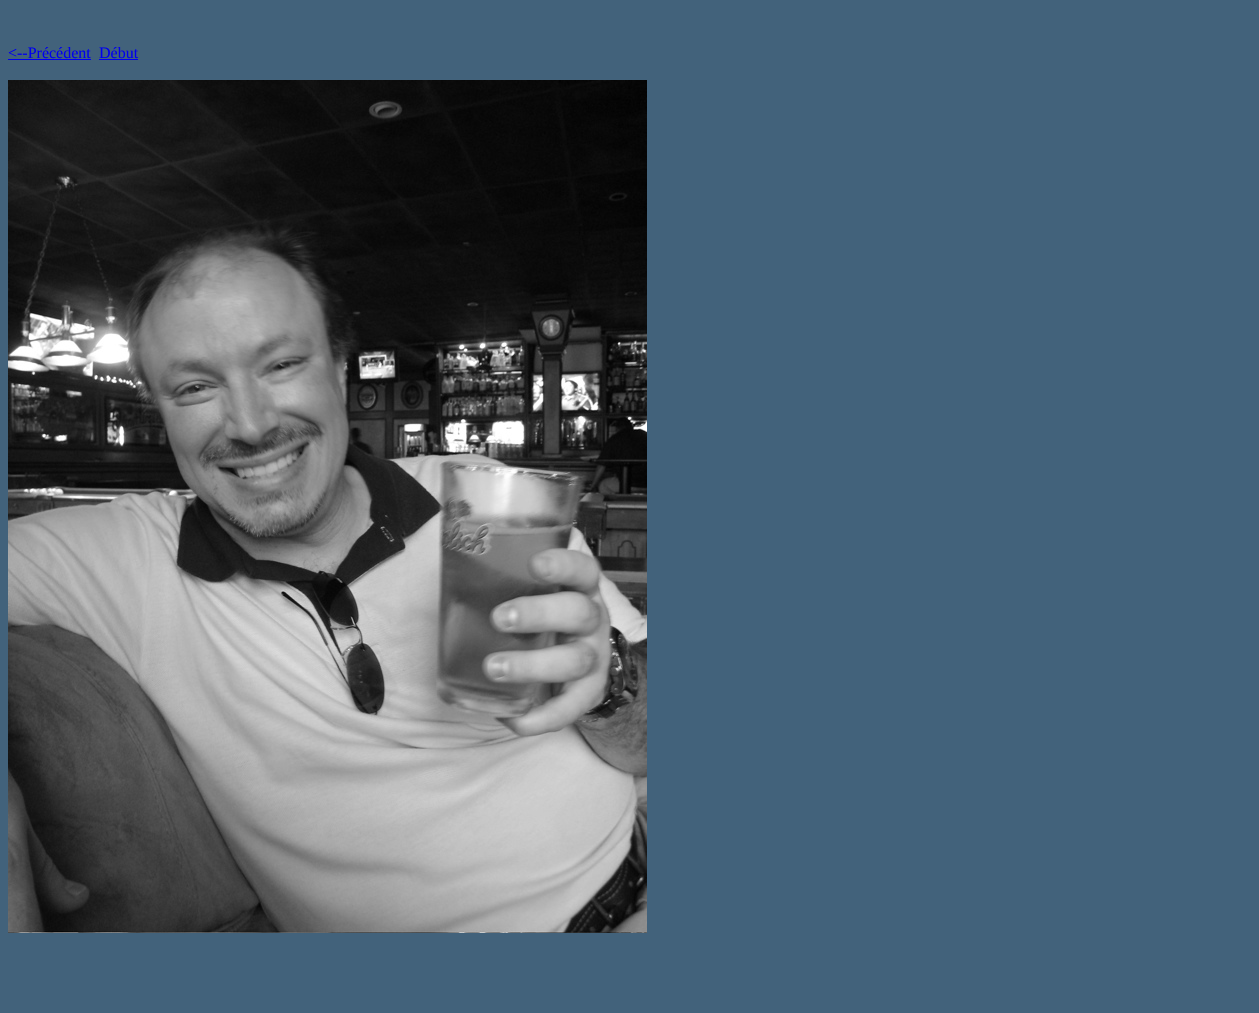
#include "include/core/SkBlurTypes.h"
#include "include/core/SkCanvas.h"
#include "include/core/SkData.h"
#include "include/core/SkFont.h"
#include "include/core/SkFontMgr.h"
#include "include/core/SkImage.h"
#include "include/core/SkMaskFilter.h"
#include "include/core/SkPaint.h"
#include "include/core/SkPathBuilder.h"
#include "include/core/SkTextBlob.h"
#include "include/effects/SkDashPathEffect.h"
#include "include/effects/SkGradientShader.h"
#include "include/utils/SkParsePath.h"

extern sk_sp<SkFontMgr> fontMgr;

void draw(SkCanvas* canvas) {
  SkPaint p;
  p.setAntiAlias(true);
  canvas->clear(SkColorSetRGB(66, 98, 123));
  p.setColor(SkColorSetRGB(0, 0, 238));
  canvas->drawRect(SkRect::MakeLTRB(8, 59, 91, 60), p);
  canvas->drawRect(SkRect::MakeLTRB(99, 59, 138, 60), p);
  canvas->drawImageRect(SkImages::DeferredFromEncodedData(SkData::MakeFromFileName("images/1.png")), SkRect::MakeLTRB(8, 80, 647, 933), SkSamplingOptions());
  SkFont font1(fontMgr->matchFamilyStyle("Liberation Serif", SkFontStyle::Normal()), 16);
  font1.setSubpixel(true);
  canvas->drawString("<--Précédent", 8, 58, font1, p);
  canvas->drawString("Début", 99, 58, font1, p);
}
